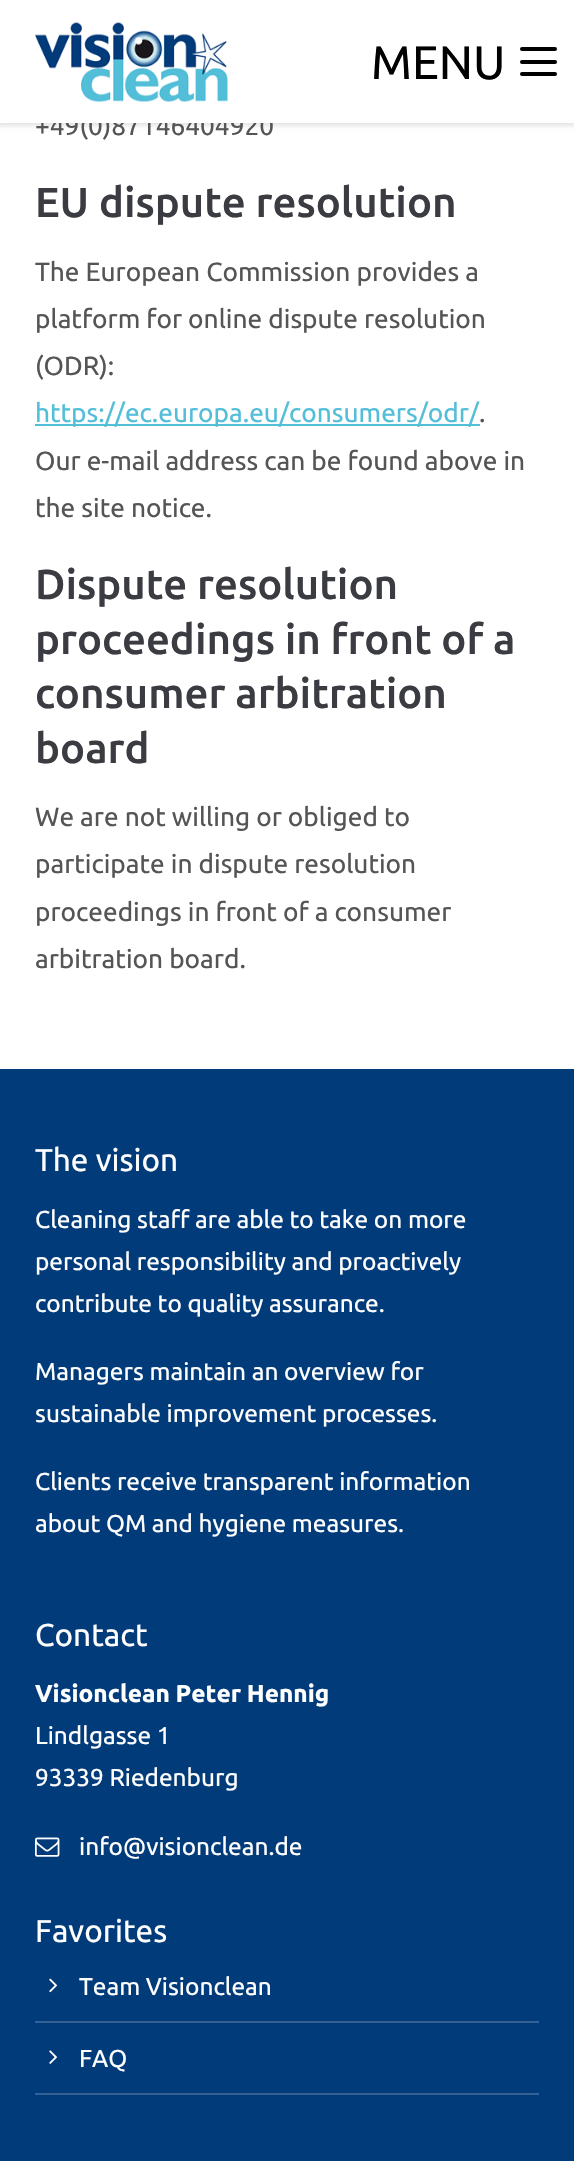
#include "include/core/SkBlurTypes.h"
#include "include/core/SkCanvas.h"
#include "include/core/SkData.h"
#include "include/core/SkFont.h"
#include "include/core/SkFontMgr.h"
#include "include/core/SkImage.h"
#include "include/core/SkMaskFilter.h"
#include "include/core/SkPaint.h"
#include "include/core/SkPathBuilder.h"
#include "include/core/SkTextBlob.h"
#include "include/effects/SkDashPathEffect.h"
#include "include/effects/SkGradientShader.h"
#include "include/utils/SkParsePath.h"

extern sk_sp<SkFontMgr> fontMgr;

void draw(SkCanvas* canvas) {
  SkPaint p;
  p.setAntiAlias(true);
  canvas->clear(SK_ColorWHITE);
  p.setColor(SkColorSetARGB(26, 0, 0, 0));
  p.setMaskFilter(SkMaskFilter::MakeBlur(kNormal_SkBlurStyle, 2));
  canvas->drawRect(SkRect::MakeLTRB(-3, -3, 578, 126), p);
  p.setMaskFilter(nullptr);
  p.setColor(SkColorSetRGB(83, 190, 216));
  canvas->drawRect(SkRect::MakeLTRB(35, 424, 480, 426), p);
  p.setColor(SkColorSetRGB(1, 59, 122));
  canvas->drawRect(SkRect::MakeLTRB(0, 1069, 574, 2161), p);
  canvas->drawImageRect(SkImages::DeferredFromEncodedData(SkData::MakeFromFileName("images/2.png")), SkRect::MakeLTRB(35, 1837, 60, 1857), SkSamplingOptions());
  canvas->drawImageRect(SkImages::DeferredFromEncodedData(SkData::MakeFromFileName("images/3.png")), SkRect::MakeLTRB(49, 1978, 58, 1993), SkSamplingOptions());
  p.setColor(SkColorSetRGB(52, 98, 149));
  canvas->drawRect(SkRect::MakeLTRB(35, 2021, 539, 2023), p);
  canvas->drawImageRect(SkImages::DeferredFromEncodedData(SkData::MakeFromFileName("images/4.png")), SkRect::MakeLTRB(49, 2050, 58, 2064), SkSamplingOptions());
  canvas->drawRect(SkRect::MakeLTRB(35, 2093, 539, 2095), p);
  SkFont font1(fontMgr->matchFamilyStyle("Ubuntu", SkFontStyle::Normal()), 26.25f);
  font1.setSubpixel(true);
  p.setColor(SkColorSetRGB(85, 85, 85));
  canvas->drawString("+49(0)87146404920", 35, 135, font1, p);
  p.setColor(SK_ColorWHITE);
  canvas->drawRect(SkRect::MakeLTRB(0, 0, 574, 123), p);
  p.setColor(SK_ColorBLACK);
  canvas->drawRoundRect(SkRect::MakeLTRB(520, 47, 557, 51), 2, 2, p);
  canvas->drawRoundRect(SkRect::MakeLTRB(520, 72, 557, 76), 2, 2, p);
  canvas->drawRoundRect(SkRect::MakeLTRB(520, 60, 557, 64), 2, 2, p);
  SkFont font2(fontMgr->matchFamilyStyle("Ubuntu", SkFontStyle::Normal()), 47);
  font2.setSubpixel(true);
  canvas->drawString("MENU", 371, 79, font2, p);
  canvas->drawImageRect(SkImages::DeferredFromEncodedData(SkData::MakeFromFileName("images/1.png")), SkRect::MakeLTRB(35, 22, 228, 102), SkSamplingOptions());
  SkFont font3(fontMgr->matchFamilyStyle("Ubuntu", SkFontStyle(500, SkFontStyle::kNormal_Width, SkFontStyle::kUpright_Slant)), 42);
  font3.setSubpixel(true);
  p.setColor(SkColorSetRGB(59, 60, 66));
  canvas->drawString("EU dispute resolution", 35, 217, font3, p);
  p.setColor(SkColorSetRGB(85, 85, 85));
  canvas->drawString("The European Commission provides a", 35, 281, font1, p);
  canvas->drawString("platform for online dispute resolution", 35, 328, font1, p);
  canvas->drawString("(ODR):", 35, 375, font1, p);
  p.setColor(SkColorSetRGB(83, 190, 216));
  canvas->drawString("https://ec.europa.eu/consumers/odr/", 35, 422, font1, p);
  p.setColor(SkColorSetRGB(85, 85, 85));
  canvas->drawString(".", 479, 422, font1, p);
  canvas->drawString("Our e-mail address can be found above in", 35, 470, font1, p);
  canvas->drawString("the site notice.", 35, 517, font1, p);
  p.setColor(SkColorSetRGB(59, 60, 66));
  canvas->drawString("Dispute resolution", 35, 599, font3, p);
  canvas->drawString("proceedings in front of a", 35, 654, font3, p);
  canvas->drawString("consumer arbitration", 35, 708, font3, p);
  canvas->drawString("board", 35, 763, font3, p);
  p.setColor(SkColorSetRGB(85, 85, 85));
  canvas->drawString("We are not willing or obliged to", 35, 826, font1, p);
  canvas->drawString("participate in dispute resolution", 35, 873, font1, p);
  canvas->drawString("proceedings in front of a consumer", 35, 921, font1, p);
  canvas->drawString("arbitration board.", 35, 968, font1, p);
  SkFont font4(fontMgr->matchFamilyStyle("Ubuntu", SkFontStyle::Normal()), 31.5f);
  font4.setSubpixel(true);
  p.setColor(SK_ColorWHITE);
  canvas->drawString("The vision", 35, 1171, font4, p);
  SkFont font5(fontMgr->matchFamilyStyle("Ubuntu", SkFontStyle::Normal()), 24.4f);
  font5.setSubpixel(true);
  canvas->drawString("Cleaning staff are able to take on more", 35, 1228, font5, p);
  canvas->drawString("personal responsibility and proactively", 35, 1270, font5, p);
  canvas->drawString("contribute to quality assurance.", 35, 1312, font5, p);
  canvas->drawString("Managers maintain an overview for", 35, 1380, font5, p);
  canvas->drawString("sustainable improvement processes.", 35, 1422, font5, p);
  canvas->drawString("Clients receive transparent information", 35, 1490, font5, p);
  canvas->drawString("about QM and hygiene measures.", 35, 1532, font5, p);
  canvas->drawString("Contact", 35, 1646, font4, p);
  SkFont font6(fontMgr->matchFamilyStyle("Ubuntu", SkFontStyle::Bold()), 24.4f);
  font6.setSubpixel(true);
  canvas->drawString("Visionclean Peter Hennig", 35, 1702, font6, p);
  canvas->drawString("Lindlgasse 1", 35, 1744, font5, p);
  canvas->drawString("93339 Riedenburg", 35, 1786, font5, p);
  canvas->drawString("info@visionclean.de", 79, 1855, font5, p);
  canvas->drawString("Favorites", 35, 1942, font4, p);
  canvas->drawString("Team Visionclean", 79, 1995, font5, p);
  canvas->drawString("FAQ", 79, 2067, font5, p);
}
